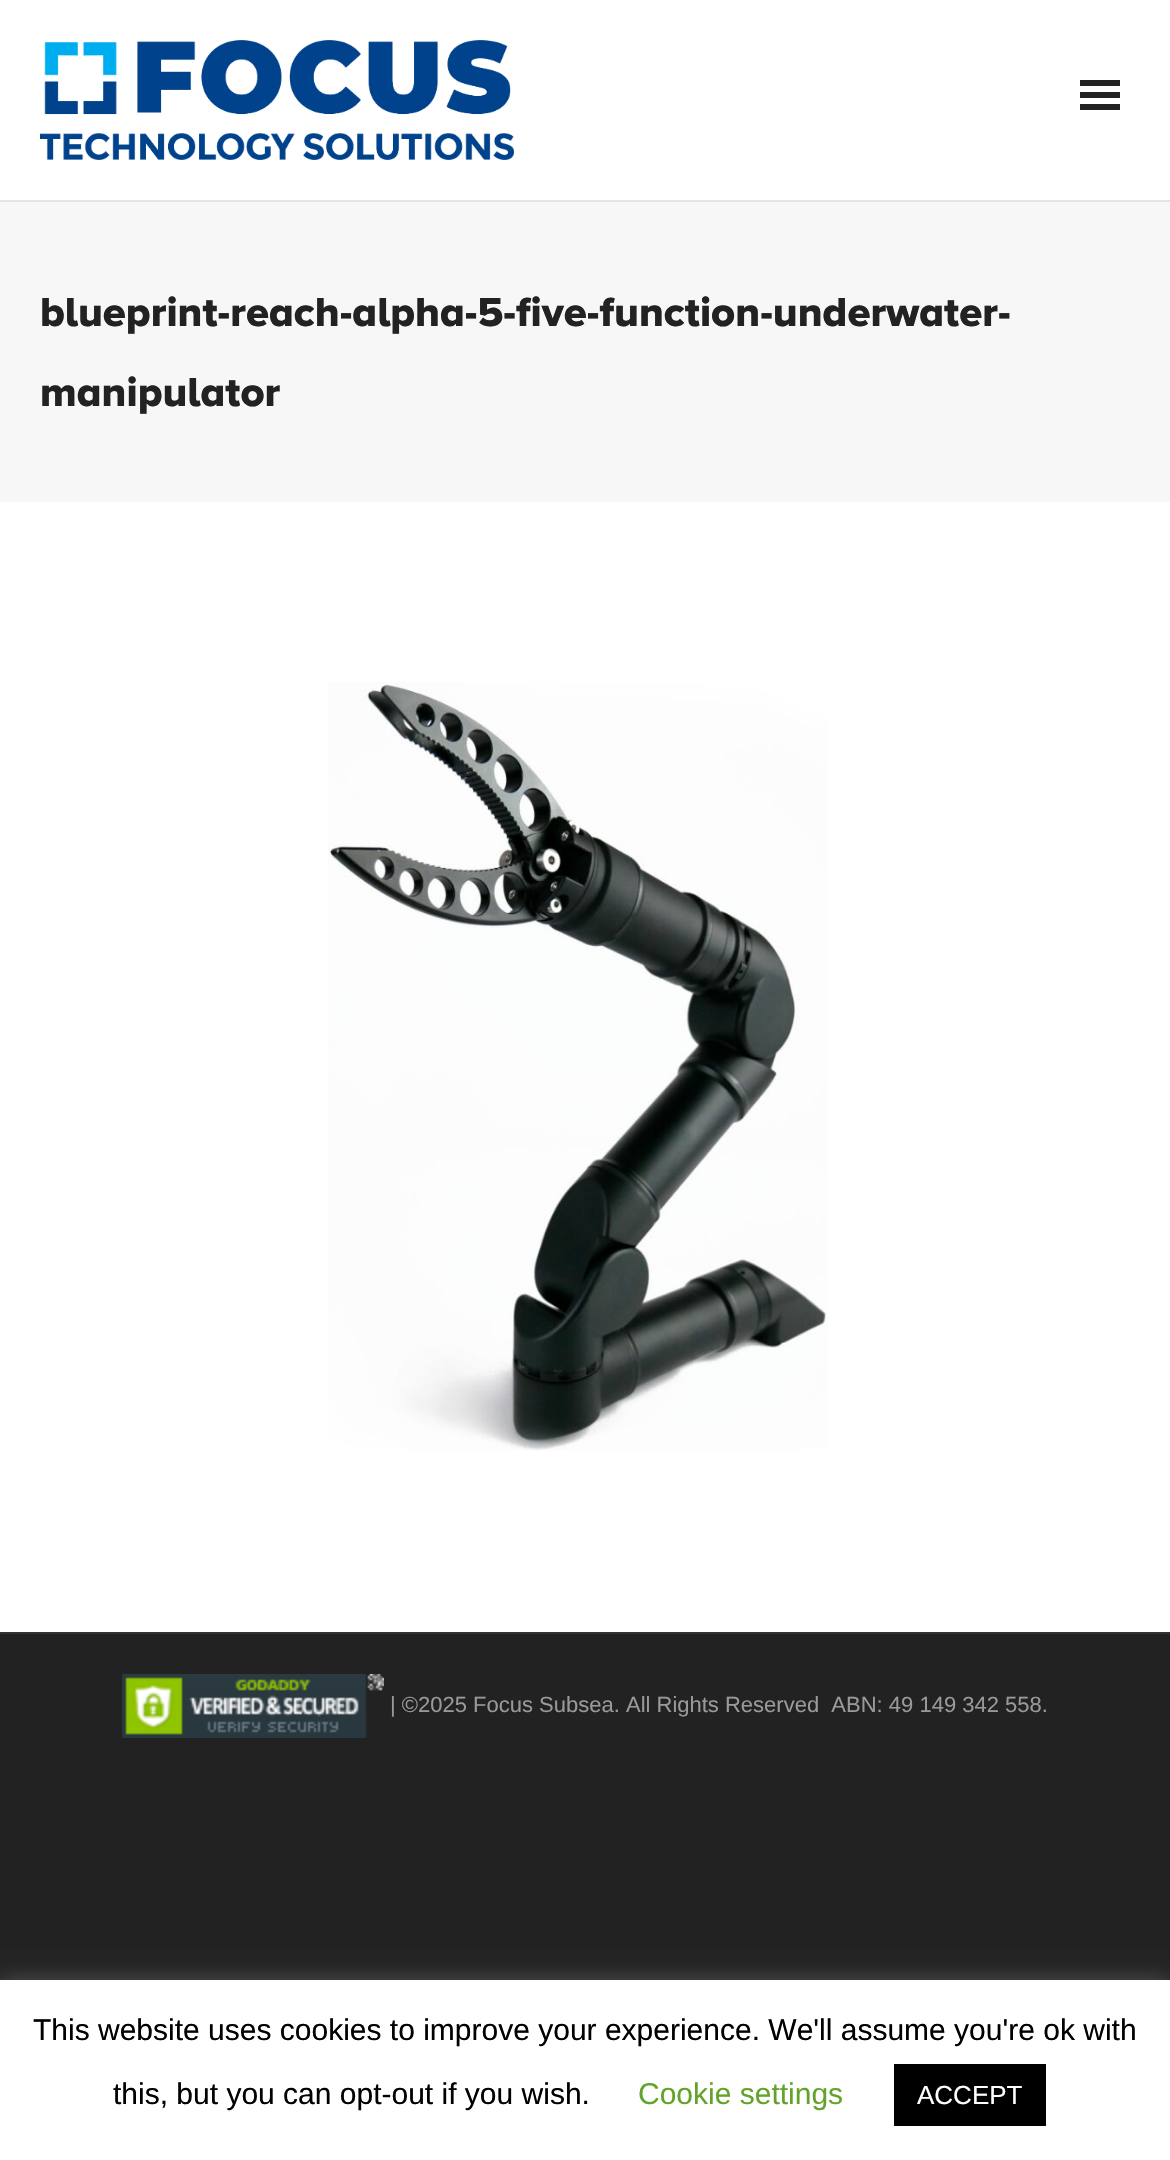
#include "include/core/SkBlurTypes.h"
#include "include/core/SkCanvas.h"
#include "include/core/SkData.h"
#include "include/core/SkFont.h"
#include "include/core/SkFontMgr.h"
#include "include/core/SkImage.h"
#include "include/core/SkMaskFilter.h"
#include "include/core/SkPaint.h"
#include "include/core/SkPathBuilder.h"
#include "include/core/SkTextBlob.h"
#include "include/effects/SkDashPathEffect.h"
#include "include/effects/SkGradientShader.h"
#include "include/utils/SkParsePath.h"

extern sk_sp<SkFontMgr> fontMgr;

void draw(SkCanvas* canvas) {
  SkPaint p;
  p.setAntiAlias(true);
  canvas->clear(SkColorSetRGB(34, 34, 34));
  p.setColor(SK_ColorWHITE);
  canvas->drawRect(SkRect::MakeLTRB(0, 0, 1170, 200), p);
  p.setColor(SkColorSetRGB(228, 228, 228));
  canvas->drawRect(SkRect::MakeLTRB(0, 200, 1170, 202), p);
  canvas->drawImageRect(SkImages::DeferredFromEncodedData(SkData::MakeFromFileName("images/1.png")), SkRect::MakeLTRB(40, 40, 514, 160), SkSamplingOptions());
  p.setColor(SkColorSetRGB(34, 34, 34));
  canvas->drawRect(SkRect::MakeLTRB(1080, 92, 1120, 98), p);
  canvas->drawRect(SkRect::MakeLTRB(1080, 80, 1120, 86), p);
  canvas->drawRect(SkRect::MakeLTRB(1080, 104, 1120, 110), p);
  p.setColor(SK_ColorWHITE);
  canvas->drawRect(SkRect::MakeLTRB(0, 502, 1170, 1632), p);
  p.setColor(SkColorSetRGB(247, 247, 247));
  canvas->drawRect(SkRect::MakeLTRB(0, 202, 1170, 502), p);
  canvas->drawImageRect(SkImages::DeferredFromEncodedData(SkData::MakeFromFileName("images/2.png")), SkRect::MakeLTRB(328, 682, 828, 1451), SkSamplingOptions());
  p.setColor(SkColorSetRGB(51, 51, 51));
  canvas->drawRect(SkRect::MakeLTRB(0, 1632, 1170, 1634), p);
  canvas->drawImageRect(SkImages::DeferredFromEncodedData(SkData::MakeFromFileName("images/3.png")), SkRect::MakeLTRB(122, 1674, 384, 1738), SkSamplingOptions());
  p.setColor(SkColorSetARGB(77, 172, 171, 171));
  p.setMaskFilter(SkMaskFilter::MakeBlur(kNormal_SkBlurStyle, 10));
  canvas->drawRect(SkRect::MakeLTRB(0, 1978, 1170, 2158), p);
  p.setMaskFilter(nullptr);
  p.setColor(SK_ColorWHITE);
  canvas->drawRect(SkRect::MakeLTRB(0, 1980, 1170, 2160), p);
  p.setColor(SK_ColorBLACK);
  canvas->drawRect(SkRect::MakeLTRB(894, 2064, 1046, 2126), p);
  SkFont font1(fontMgr->matchFamilyStyle("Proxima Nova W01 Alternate", SkFontStyle(800, SkFontStyle::kNormal_Width, SkFontStyle::kUpright_Slant)), 42);
  font1.setSubpixel(true);
  p.setColor(SkColorSetRGB(34, 34, 34));
  canvas->drawString("blueprint-reach-alpha-5-five-function-underwater-", 40, 326, font1, p);
  canvas->drawString("manipulator", 40, 406, font1, p);
  SkFont font2(fontMgr->matchFamilyStyle("Liberation Sans", SkFontStyle::Normal()), 22);
  font2.setSubpixel(true);
  p.setColor(SkColorSetRGB(153, 153, 153));
  canvas->drawString("| ©2025 Focus Subsea. All Rights Reserved  ABN: 49 149 342 558.", 390, 1712, font2, p);
  SkFont font3(fontMgr->matchFamilyStyle("Liberation Sans", SkFontStyle::Normal()), 30);
  font3.setSubpixel(true);
  p.setColor(SK_ColorBLACK);
  canvas->drawString("This website uses cookies to improve your experience. We'll assume you're ok with", 33, 2040, font3, p);
  canvas->drawString("this, but you can opt-out if you wish.", 113, 2104, font3, p);
  p.setColor(SkColorSetRGB(98, 163, 41));
  canvas->drawString("Cookie settings", 638, 2104, font3, p);
  SkFont font4(fontMgr->matchFamilyStyle("Liberation Sans", SkFontStyle::Normal()), 26);
  font4.setSubpixel(true);
  p.setColor(SK_ColorWHITE);
  canvas->drawString("ACCEPT", 917, 2104, font4, p);
}
